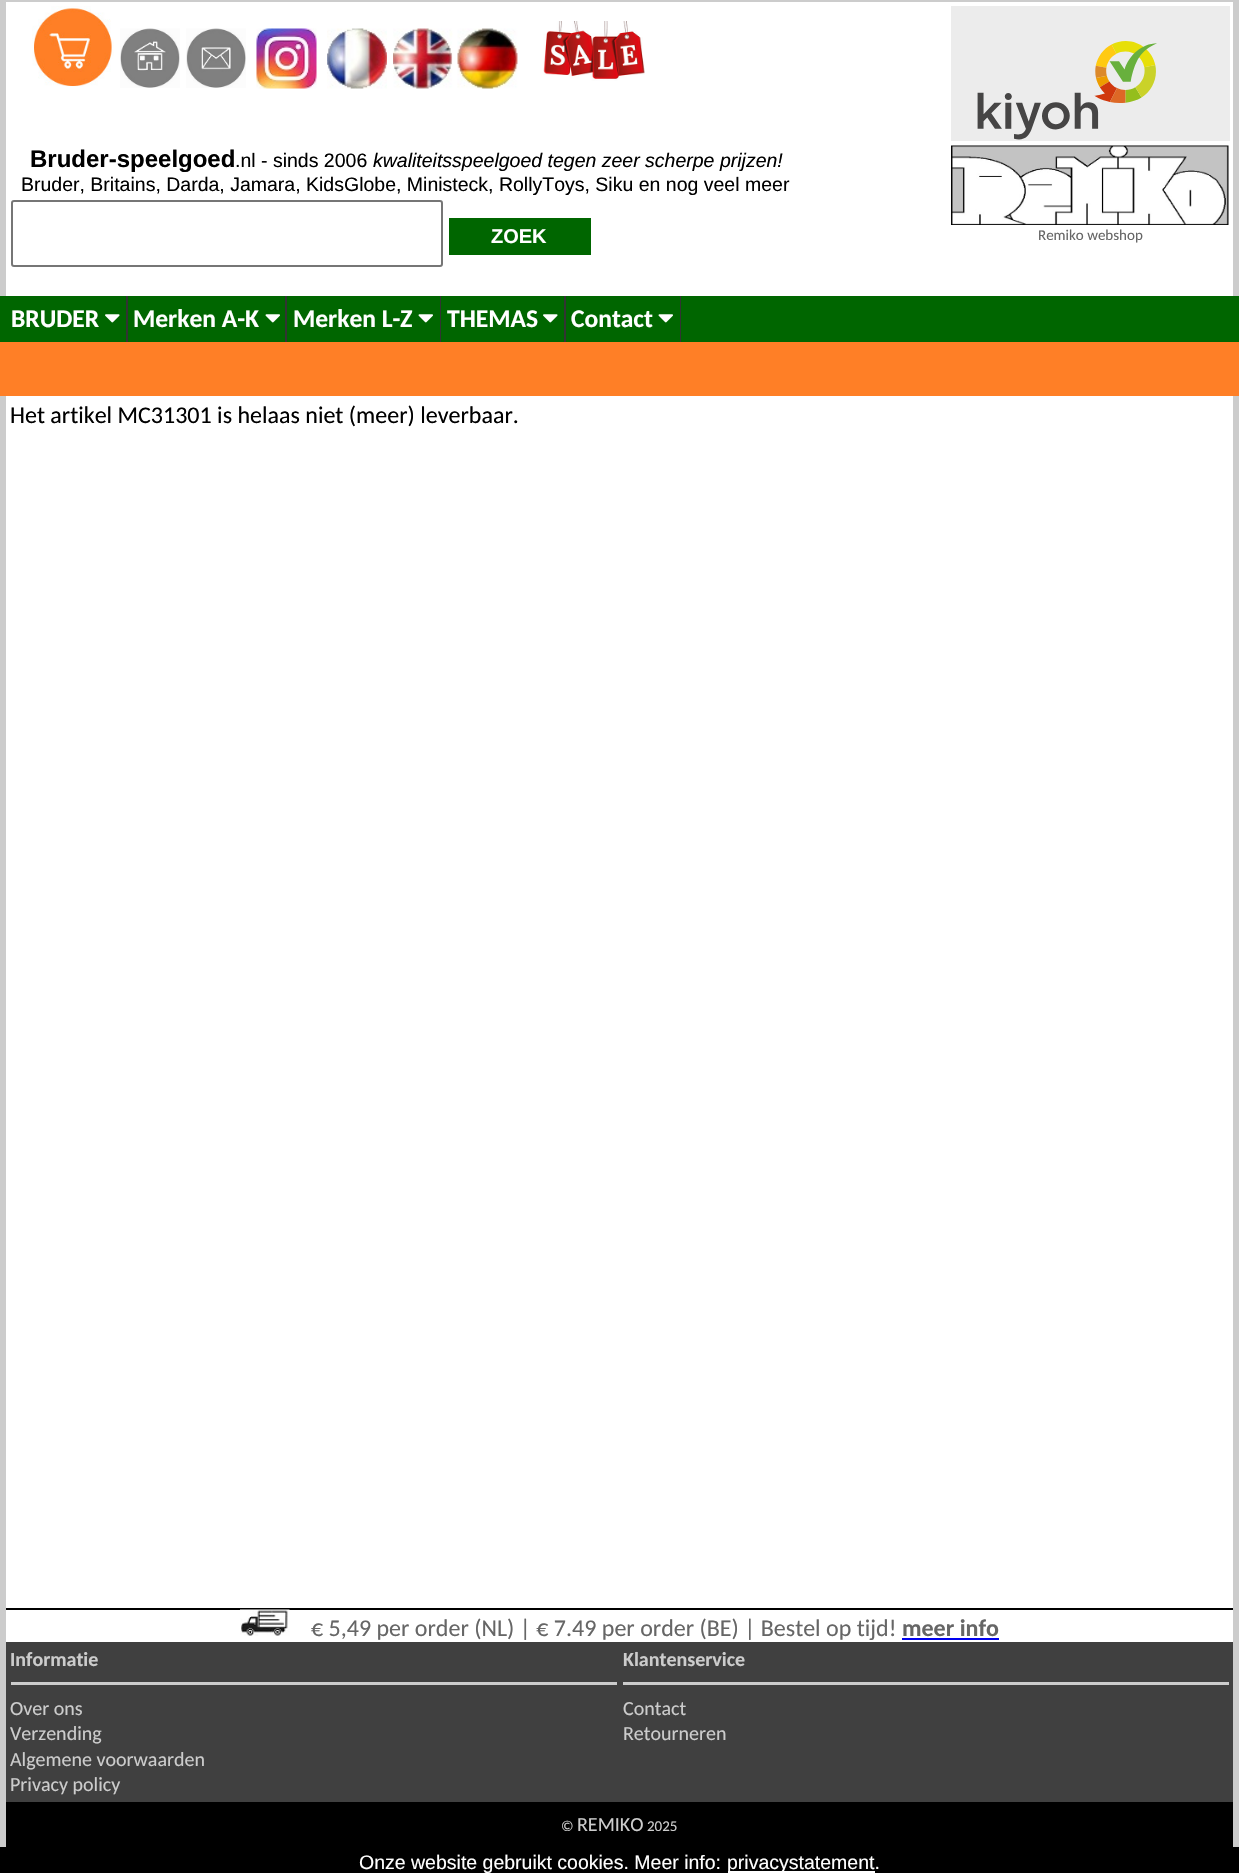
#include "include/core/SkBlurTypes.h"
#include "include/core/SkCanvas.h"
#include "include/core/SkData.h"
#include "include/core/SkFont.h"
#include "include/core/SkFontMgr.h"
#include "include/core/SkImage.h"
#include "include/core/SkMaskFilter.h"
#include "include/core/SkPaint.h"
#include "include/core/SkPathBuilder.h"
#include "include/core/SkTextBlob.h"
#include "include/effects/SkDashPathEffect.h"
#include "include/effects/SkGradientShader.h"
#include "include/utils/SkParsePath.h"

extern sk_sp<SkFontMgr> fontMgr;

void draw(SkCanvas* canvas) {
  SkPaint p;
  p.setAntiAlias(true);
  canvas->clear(SK_ColorWHITE);
  p.setColor(SkColorSetRGB(204, 204, 204));
  canvas->drawRect(SkRect::MakeLTRB(0, 0, 1239, 2), p);
  canvas->drawRect(SkRect::MakeLTRB(0, 2, 6, 296), p);
  canvas->drawImageRect(SkImages::DeferredFromEncodedData(SkData::MakeFromFileName("images/1.png")), SkRect::MakeLTRB(32, 6, 114, 87), SkSamplingOptions());
  canvas->drawImageRect(SkImages::DeferredFromEncodedData(SkData::MakeFromFileName("images/2.png")), SkRect::MakeLTRB(120, 28, 180, 88), SkSamplingOptions());
  canvas->drawImageRect(SkImages::DeferredFromEncodedData(SkData::MakeFromFileName("images/3.png")), SkRect::MakeLTRB(186, 28, 246, 88), SkSamplingOptions());
  canvas->drawImageRect(SkImages::DeferredFromEncodedData(SkData::MakeFromFileName("images/4.png")), SkRect::MakeLTRB(256, 28, 317, 89), SkSamplingOptions());
  canvas->drawImageRect(SkImages::DeferredFromEncodedData(SkData::MakeFromFileName("images/5.png")), SkRect::MakeLTRB(327, 28, 387, 89), SkSamplingOptions());
  canvas->drawImageRect(SkImages::DeferredFromEncodedData(SkData::MakeFromFileName("images/6.png")), SkRect::MakeLTRB(393, 28, 453, 89), SkSamplingOptions());
  canvas->drawImageRect(SkImages::DeferredFromEncodedData(SkData::MakeFromFileName("images/7.png")), SkRect::MakeLTRB(457, 28, 518, 89), SkSamplingOptions());
  canvas->drawImageRect(SkImages::DeferredFromEncodedData(SkData::MakeFromFileName("images/8.png")), SkRect::MakeLTRB(543, 21, 645, 81), SkSamplingOptions());
  canvas->drawImageRect(SkImages::DeferredFromEncodedData(SkData::MakeFromFileName("images/9.png")), SkRect::MakeLTRB(951, 6, 1230, 141), SkSamplingOptions());
  canvas->drawImageRect(SkImages::DeferredFromEncodedData(SkData::MakeFromFileName("images/10.png")), SkRect::MakeLTRB(951, 145, 1229, 225), SkSamplingOptions());
  p.setStyle(SkPaint::kStroke_Style);
  p.setStrokeWidth(2);
  p.setColor(SkColorSetRGB(118, 118, 118));
  canvas->drawRoundRect(SkRect::MakeLTRB(12, 201, 442, 266), 2, 2, p);
  p.setStyle(SkPaint::kFill_Style);
  p.setColor(SkColorSetRGB(0, 102, 0));
  canvas->drawRect(SkRect::MakeLTRB(449, 218, 591, 255), p);
  p.setColor(SkColorSetRGB(204, 204, 204));
  canvas->drawRect(SkRect::MakeLTRB(1233, 2, 1239, 296), p);
  p.setColor(SkColorSetRGB(0, 102, 0));
  canvas->drawRect(SkRect::MakeLTRB(0, 296, 6, 342), p);
  canvas->drawRect(SkRect::MakeLTRB(6, 296, 1239, 342), p);
  p.setColor(SkColorSetRGB(51, 51, 51));
  canvas->drawRect(SkRect::MakeLTRB(126, 296, 128, 342), p);
  canvas->drawImageRect(SkImages::DeferredFromEncodedData(SkData::MakeFromFileName("images/11.png")), SkRect::MakeLTRB(105, 314, 120, 323), SkSamplingOptions());
  canvas->drawRect(SkRect::MakeLTRB(285, 296, 287, 342), p);
  canvas->drawImageRect(SkImages::DeferredFromEncodedData(SkData::MakeFromFileName("images/12.png")), SkRect::MakeLTRB(265, 314, 280, 323), SkSamplingOptions());
  canvas->drawRect(SkRect::MakeLTRB(440, 296, 441, 342), p);
  canvas->drawImageRect(SkImages::DeferredFromEncodedData(SkData::MakeFromFileName("images/12.png")), SkRect::MakeLTRB(418, 314, 433, 323), SkSamplingOptions());
  canvas->drawRect(SkRect::MakeLTRB(564, 296, 566, 342), p);
  canvas->drawImageRect(SkImages::DeferredFromEncodedData(SkData::MakeFromFileName("images/11.png")), SkRect::MakeLTRB(543, 314, 558, 323), SkSamplingOptions());
  canvas->drawRect(SkRect::MakeLTRB(680, 296, 681, 342), p);
  canvas->drawImageRect(SkImages::DeferredFromEncodedData(SkData::MakeFromFileName("images/12.png")), SkRect::MakeLTRB(658, 314, 673, 323), SkSamplingOptions());
  p.setColor(SkColorSetRGB(255, 127, 38));
  canvas->drawRect(SkRect::MakeLTRB(0, 342, 1239, 396), p);
  p.setColor(SkColorSetRGB(204, 204, 204));
  canvas->drawRect(SkRect::MakeLTRB(0, 396, 6, 1847), p);
  canvas->drawRect(SkRect::MakeLTRB(1233, 396, 1239, 1847), p);
  p.setColor(SK_ColorBLACK);
  canvas->drawRect(SkRect::MakeLTRB(6, 1608, 1233, 1610), p);
  canvas->drawImageRect(SkImages::DeferredFromEncodedData(SkData::MakeFromFileName("images/13.png")), SkRect::MakeLTRB(240, 1609, 290, 1636), SkSamplingOptions());
  p.setColor(SkColorSetRGB(0, 0, 238));
  canvas->drawRect(SkRect::MakeLTRB(902, 1638, 999, 1640), p);
  p.setColor(SkColorSetRGB(64, 64, 64));
  canvas->drawRect(SkRect::MakeLTRB(6, 1642, 1233, 1802), p);
  p.setColor(SkColorSetRGB(204, 204, 204));
  canvas->drawRect(SkRect::MakeLTRB(11, 1682, 617, 1685), p);
  canvas->drawRect(SkRect::MakeLTRB(623, 1682, 1229, 1685), p);
  p.setColor(SK_ColorBLACK);
  canvas->drawRect(SkRect::MakeLTRB(6, 1802, 1233, 1847), p);
  canvas->drawRect(SkRect::MakeLTRB(0, 1847, 1239, 1873), p);
  p.setColor(SK_ColorWHITE);
  canvas->drawRect(SkRect::MakeLTRB(728, 1871, 875, 1873), p);
  SkFont font1(fontMgr->matchFamilyStyle("Liberation Sans", SkFontStyle::Bold()), 24);
  font1.setSubpixel(true);
  p.setColor(SK_ColorBLACK);
  canvas->drawString("Bruder-speelgoed", 30, 167, font1, p);
  SkFont font2(fontMgr->matchFamilyStyle("Liberation Sans", SkFontStyle::Normal()), 19.5f);
  font2.setSubpixel(true);
  canvas->drawString(".nl - sinds 2006", 235, 167, font2, p);
  SkFont font3(fontMgr->matchFamilyStyle("Liberation Sans", SkFontStyle::Italic()), 19.5f);
  font3.setSubpixel(true);
  canvas->drawString("kwaliteitsspeelgoed tegen zeer scherpe prijzen!", 373, 167, font3, p);
  canvas->drawString("Bruder, Britains, Darda, Jamara, KidsGlobe, Ministeck, RollyToys, Siku en nog veel meer", 21, 191, font2, p);
  SkFont font4(fontMgr->matchFamilyStyle("Carlito", SkFontStyle::Normal()), 15);
  font4.setSubpixel(true);
  p.setColor(SkColorSetRGB(102, 102, 102));
  canvas->drawString("Remiko webshop", 1038, 240, font4, p);
  SkFont font5(fontMgr->matchFamilyStyle("Liberation Sans", SkFontStyle::Bold()), 20);
  font5.setSubpixel(true);
  p.setColor(SK_ColorWHITE);
  canvas->drawString("ZOEK", 491, 243, font5, p);
  SkFont font6(fontMgr->matchFamilyStyle("Carlito", SkFontStyle::Bold()), 25.5f);
  font6.setSubpixel(true);
  canvas->drawString("BRUDER", 11, 327, font6, p);
  canvas->drawString("Merken A-K", 133, 327, font6, p);
  canvas->drawString("Merken L-Z", 293, 327, font6, p);
  canvas->drawString("THEMAS", 447, 327, font6, p);
  canvas->drawString("Contact", 571, 327, font6, p);
  SkFont font7(fontMgr->matchFamilyStyle("Carlito", SkFontStyle::Normal()), 24);
  font7.setSubpixel(true);
  p.setColor(SK_ColorBLACK);
  canvas->drawString("Het artikel MC31301 is helaas niet (meer) leverbaar.", 10, 423, font7, p);
  p.setColor(SkColorSetRGB(102, 102, 102));
  canvas->drawString("€ 5,49 per order (NL) | € 7.49 per order (BE) | Bestel op tijd!", 311, 1636, font7, p);
  SkFont font8(fontMgr->matchFamilyStyle("Carlito", SkFontStyle::Bold()), 24);
  font8.setSubpixel(true);
  canvas->drawString("meer info", 902, 1636, font8, p);
  SkFont font9(fontMgr->matchFamilyStyle("Carlito", SkFontStyle::Bold()), 20);
  font9.setSubpixel(true);
  p.setColor(SkColorSetRGB(204, 204, 204));
  canvas->drawString("Informatie", 10, 1666, font9, p);
  SkFont font10(fontMgr->matchFamilyStyle("Carlito", SkFontStyle::Normal()), 20);
  font10.setSubpixel(true);
  canvas->drawString("Over ons", 10, 1715, font10, p);
  canvas->drawString("Verzending", 10, 1740, font10, p);
  canvas->drawString("Algemene voorwaarden", 10, 1766, font10, p);
  canvas->drawString("Privacy policy", 10, 1791, font10, p);
  canvas->drawString("Klantenservice", 623, 1666, font9, p);
  canvas->drawString("Contact", 623, 1715, font10, p);
  canvas->drawString("Retourneren", 623, 1740, font10, p);
  canvas->drawString("©", 561, 1831, font4, p);
  canvas->drawString("REMIKO", 577, 1831, font10, p);
  canvas->drawString("2025", 647, 1831, font4, p);
  p.setColor(SK_ColorWHITE);
  canvas->drawString("Onze website gebruikt cookies. Meer info:", 359, 1869, font2, p);
  canvas->drawString("privacystatement.", 727, 1869, font2, p);
}
